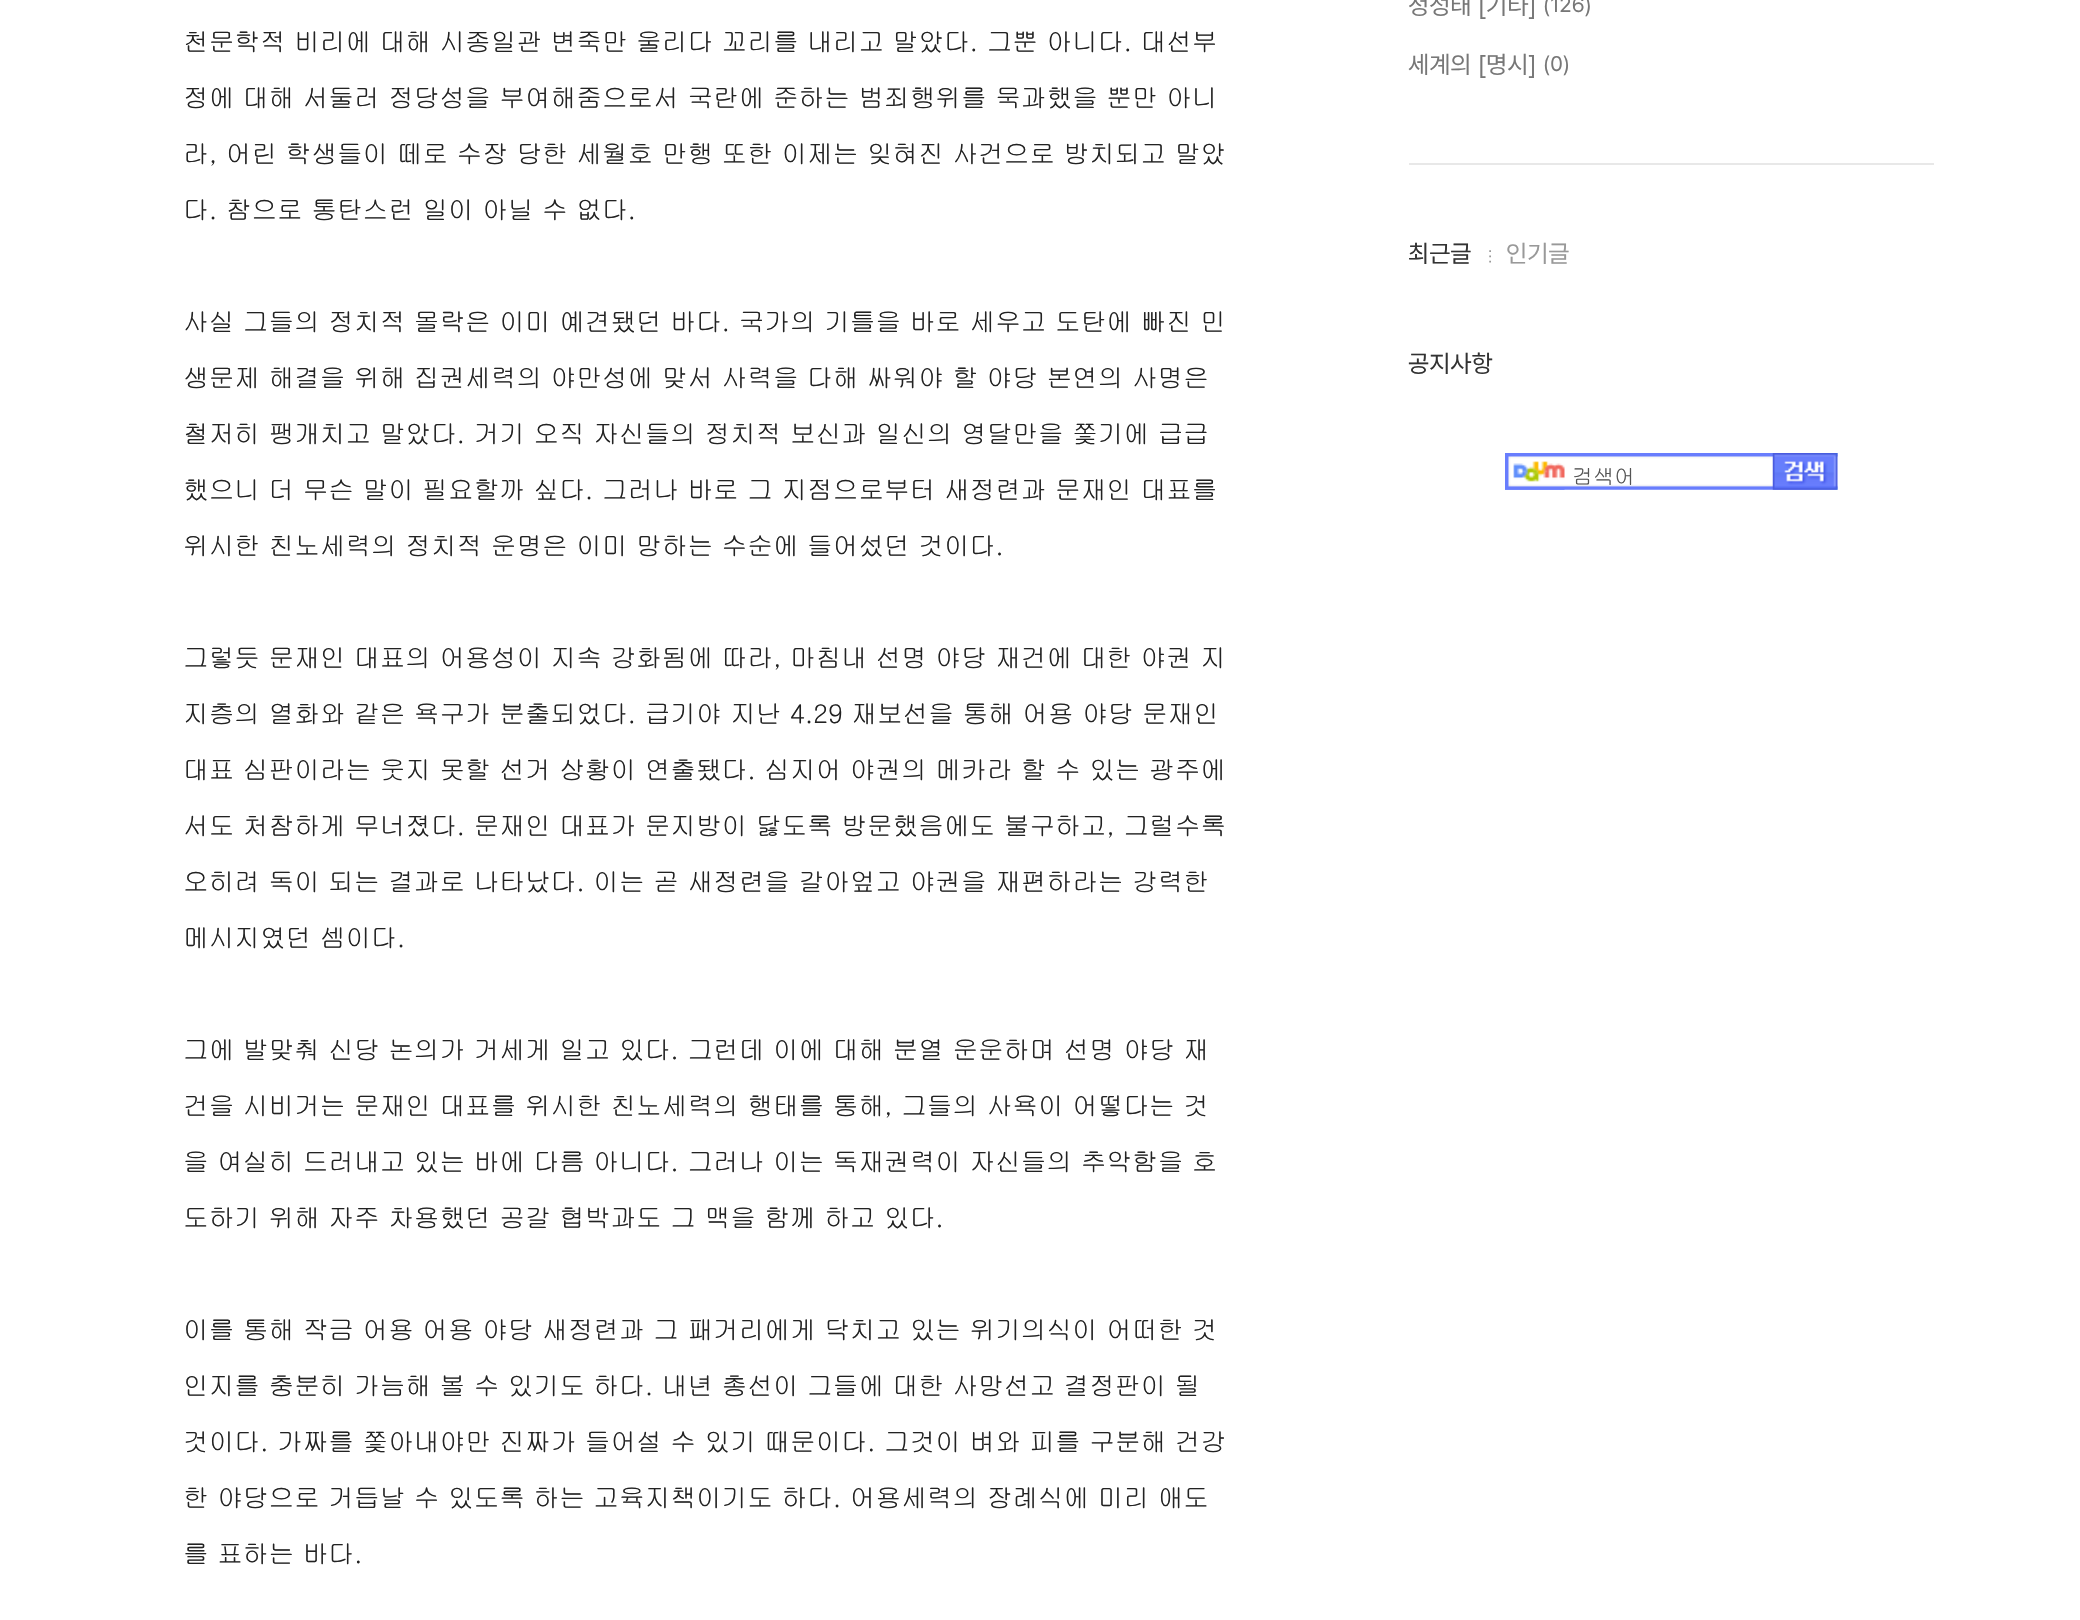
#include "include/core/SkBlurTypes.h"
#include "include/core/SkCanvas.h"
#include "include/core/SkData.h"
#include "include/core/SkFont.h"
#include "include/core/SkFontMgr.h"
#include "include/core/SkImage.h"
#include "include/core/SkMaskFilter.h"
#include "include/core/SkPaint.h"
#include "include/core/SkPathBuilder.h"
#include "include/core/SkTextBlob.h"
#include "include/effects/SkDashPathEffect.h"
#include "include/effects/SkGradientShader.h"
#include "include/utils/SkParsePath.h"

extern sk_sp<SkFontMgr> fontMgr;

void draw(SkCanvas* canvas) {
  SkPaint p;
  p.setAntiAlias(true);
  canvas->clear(SK_ColorWHITE);
  p.setColor(SkColorSetRGB(232, 232, 232));
  canvas->drawRect(SkRect::MakeLTRB(1409, 163, 1934, 165), p);
  canvas->drawImageRect(SkImages::DeferredFromEncodedData(SkData::MakeFromFileName("images/1.png")), SkRect::MakeLTRB(1489, 250, 1491, 263), SkSamplingOptions());
  canvas->drawImageRect(SkImages::DeferredFromEncodedData(SkData::MakeFromFileName("images/2.png")), SkRect::MakeLTRB(1505, 453, 1838, 490), SkSamplingOptions());
  canvas->drawImageRect(SkImages::DeferredFromEncodedData(SkData::MakeFromFileName("images/3.png")), SkRect::MakeLTRB(1505, 456, 1565, 490), SkSamplingOptions());
  canvas->drawImageRect(SkImages::DeferredFromEncodedData(SkData::MakeFromFileName("images/4.png")), SkRect::MakeLTRB(1772, 453, 1838, 490), SkSamplingOptions());
  SkFont font1(fontMgr->matchFamilyStyle("Gulim", SkFontStyle::Normal()), 25.65f);
  font1.setSubpixel(true);
  p.setColor(SkColorSetRGB(34, 34, 34));
  canvas->drawString("천문학적 비리에 대해 시종일관 변죽만 울리다 꼬리를 내리고 말았다. 그뿐 아니다. 대선부", 183, 51, font1, p);
  canvas->drawString("정에 대해 서둘러 정당성을 부여해줌으로서 국란에 준하는 범죄행위를 묵과했을 뿐만 아니", 183, 107, font1, p);
  canvas->drawString("라, 어린 학생들이 떼로 수장 당한 세월호 만행 또한 이제는 잊혀진 사건으로 방치되고 말았", 183, 163, font1, p);
  canvas->drawString("다. 참으로 통탄스런 일이 아닐 수 없다.", 183, 219, font1, p);
  canvas->drawString("사실 그들의 정치적 몰락은 이미 예견됐던 바다. 국가의 기틀을 바로 세우고 도탄에 빠진 민", 183, 331, font1, p);
  canvas->drawString("생문제 해결을 위해 집권세력의 야만성에 맞서 사력을 다해 싸워야 할 야당 본연의 사명은", 183, 387, font1, p);
  canvas->drawString("철저히 팽개치고 말았다. 거기 오직 자신들의 정치적 보신과 일신의 영달만을 쫓기에 급급", 183, 443, font1, p);
  canvas->drawString("했으니 더 무슨 말이 필요할까 싶다. 그러나 바로 그 지점으로부터 새정련과 문재인 대표를", 183, 499, font1, p);
  canvas->drawString("위시한 친노세력의 정치적 운명은 이미 망하는 수순에 들어섰던 것이다.", 183, 555, font1, p);
  canvas->drawString("그렇듯 문재인 대표의 어용성이 지속 강화됨에 따라, 마침내 선명 야당 재건에 대한 야권 지", 183, 667, font1, p);
  canvas->drawString("지층의 열화와 같은 욕구가 분출되었다. 급기야 지난 4.29 재보선을 통해 어용 야당 문재인", 183, 723, font1, p);
  canvas->drawString("대표 심판이라는 웃지 못할 선거 상황이 연출됐다. 심지어 야권의 메카라 할 수 있는 광주에", 183, 779, font1, p);
  canvas->drawString("서도 처참하게 무너졌다. 문재인 대표가 문지방이 닳도록 방문했음에도 불구하고, 그럴수록", 183, 835, font1, p);
  canvas->drawString("오히려 독이 되는 결과로 나타났다. 이는 곧 새정련을 갈아엎고 야권을 재편하라는 강력한", 183, 891, font1, p);
  canvas->drawString("메시지였던 셈이다.", 183, 947, font1, p);
  canvas->drawString("그에 발맞춰 신당 논의가 거세게 일고 있다. 그런데 이에 대해 분열 운운하며 선명 야당 재", 183, 1059, font1, p);
  canvas->drawString("건을 시비거는 문재인 대표를 위시한 친노세력의 행태를 통해, 그들의 사욕이 어떻다는 것", 183, 1115, font1, p);
  canvas->drawString("을 여실히 드러내고 있는 바에 다름 아니다. 그러나 이는 독재권력이 자신들의 추악함을 호", 183, 1171, font1, p);
  canvas->drawString("도하기 위해 자주 차용했던 공갈 협박과도 그 맥을 함께 하고 있다.", 183, 1227, font1, p);
  canvas->drawString("이를 통해 작금 어용 어용 야당 새정련과 그 패거리에게 닥치고 있는 위기의식이 어떠한 것", 183, 1339, font1, p);
  canvas->drawString("인지를 충분히 가늠해 볼 수 있기도 하다. 내년 총선이 그들에 대한 사망선고 결정판이 될", 183, 1395, font1, p);
  canvas->drawString("것이다. 가짜를 쫓아내야만 진짜가 들어설 수 있기 때문이다. 그것이 벼와 피를 구분해 건강", 183, 1451, font1, p);
  canvas->drawString("한 야당으로 거듭날 수 있도록 하는 고육지책이기도 하다. 어용세력의 장례식에 미리 애도", 183, 1507, font1, p);
  canvas->drawString("를 표하는 바다.", 183, 1563, font1, p);
  SkFont font2(fontMgr->matchFamilyStyle("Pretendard", SkFontStyle::Normal()), 24.5f);
  font2.setSubpixel(true);
  p.setColor(SkColorSetRGB(119, 119, 119));
  canvas->drawString("정성태 [기타]", 1408, 14, font2, p);
  SkFont font3(fontMgr->matchFamilyStyle("Pretendard", SkFontStyle::Normal()), 21);
  font3.setSubpixel(true);
  canvas->drawString("(126)", 1543, 12, font3, p);
  canvas->drawString("세계의 [명시]", 1408, 73, font2, p);
  canvas->drawString("(0)", 1543, 71, font3, p);
  p.setColor(SkColorSetRGB(51, 51, 51));
  canvas->drawString("최근글", 1408, 262, font2, p);
  p.setColor(SkColorSetRGB(153, 153, 153));
  canvas->drawString("인기글", 1506, 262, font2, p);
  p.setColor(SkColorSetRGB(51, 51, 51));
  canvas->drawString("공지사항", 1408, 372, font2, p);
  SkFont font4(fontMgr->matchFamilyStyle("Gulim", SkFontStyle::Normal()), 21);
  font4.setSubpixel(true);
  p.setColor(SkColorSetRGB(85, 85, 85));
  canvas->drawString("검색어", 1572, 484, font4, p);
}
